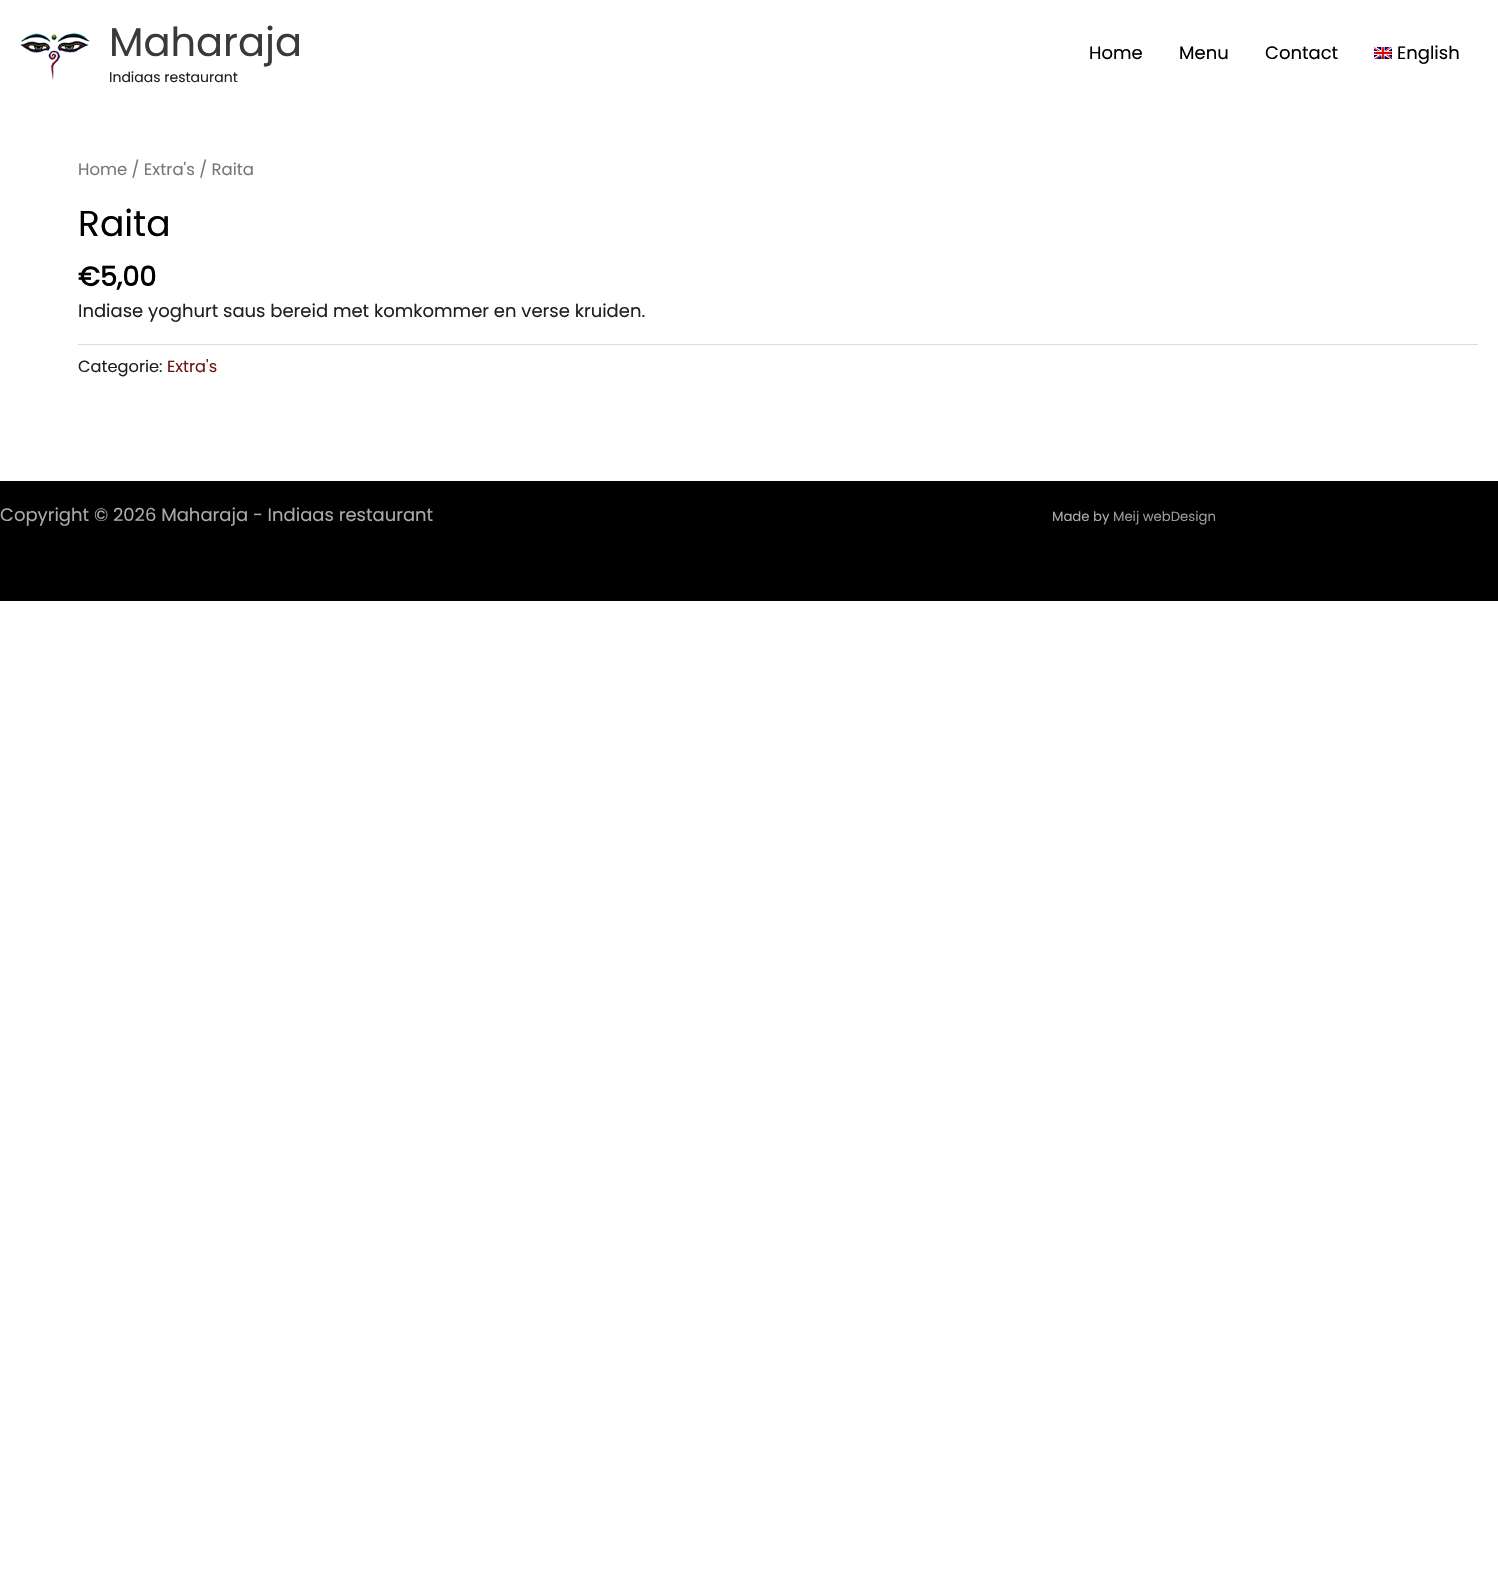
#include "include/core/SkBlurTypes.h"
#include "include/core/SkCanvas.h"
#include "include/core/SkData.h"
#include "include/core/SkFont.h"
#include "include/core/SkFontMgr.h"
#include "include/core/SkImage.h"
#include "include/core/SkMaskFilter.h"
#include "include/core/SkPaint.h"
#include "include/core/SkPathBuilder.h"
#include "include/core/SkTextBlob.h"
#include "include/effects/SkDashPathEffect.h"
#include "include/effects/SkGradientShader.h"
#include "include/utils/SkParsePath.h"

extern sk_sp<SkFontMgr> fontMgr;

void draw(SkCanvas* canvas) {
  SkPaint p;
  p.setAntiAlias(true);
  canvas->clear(SK_ColorWHITE);
  canvas->drawImageRect(SkImages::DeferredFromEncodedData(SkData::MakeFromFileName("images/1.png")), SkRect::MakeLTRB(20, 32, 90, 80), SkSamplingOptions());
  canvas->drawImageRect(SkImages::DeferredFromEncodedData(SkData::MakeFromFileName("images/2.png")), SkRect::MakeLTRB(1374, 47, 1392, 59), SkSamplingOptions());
  p.setColor(SkColorSetRGB(221, 221, 221));
  canvas->drawRect(SkRect::MakeLTRB(78, 344, 1478, 345), p);
  p.setColor(SK_ColorBLACK);
  canvas->drawRect(SkRect::MakeLTRB(0, 481, 1498, 601), p);
  SkFont font1(fontMgr->matchFamilyStyle("Poppins", SkFontStyle::Normal()), 40);
  font1.setSubpixel(true);
  p.setColor(SkColorSetRGB(58, 58, 58));
  canvas->drawString("Maharaja", 109, 56, font1, p);
  SkFont font2(fontMgr->matchFamilyStyle("Poppins", SkFontStyle::Normal()), 14);
  font2.setSubpixel(true);
  p.setColor(SkColorSetRGB(33, 31, 31));
  canvas->drawString("Indiaas restaurant", 109, 82, font2, p);
  SkFont font3(fontMgr->matchFamilyStyle("Poppins", SkFontStyle::Normal()), 18);
  font3.setSubpixel(true);
  p.setColor(SK_ColorBLACK);
  canvas->drawString("Home", 1089, 59, font3, p);
  canvas->drawString("Menu", 1179, 59, font3, p);
  canvas->drawString("Contact", 1265, 59, font3, p);
  canvas->drawString("English", 1397, 59, font3, p);
  SkFont font4(fontMgr->matchFamilyStyle("Poppins", SkFontStyle::Normal()), 16.5f);
  font4.setSubpixel(true);
  p.setColor(SkColorSetRGB(119, 119, 119));
  canvas->drawString("Home / Extra's / Raita", 78, 175, font4, p);
  SkFont font5(fontMgr->matchFamilyStyle("Poppins", SkFontStyle::Normal()), 36);
  font5.setSubpixel(true);
  p.setColor(SK_ColorBLACK);
  canvas->drawString("Raita", 78, 236, font5, p);
  SkFont font6(fontMgr->matchFamilyStyle("Poppins", SkFontStyle::Bold()), 27);
  font6.setSubpixel(true);
  canvas->drawString("€5,00", 78, 286, font6, p);
  p.setColor(SkColorSetRGB(33, 31, 31));
  canvas->drawString("Indiase yoghurt saus bereid met komkommer en verse kruiden.", 78, 317, font3, p);
  SkFont font7(fontMgr->matchFamilyStyle("Poppins", SkFontStyle::Normal()), 16.25f);
  font7.setSubpixel(true);
  canvas->drawString("Categorie:", 78, 372, font7, p);
  p.setColor(SkColorSetRGB(107, 22, 17));
  canvas->drawString("Extra's", 167, 372, font7, p);
  p.setColor(SkColorSetRGB(170, 170, 170));
  canvas->drawString("Copyright © 2026 Maharaja - Indiaas restaurant", 0, 521, font3, p);
  SkFont font8(fontMgr->matchFamilyStyle("Poppins", SkFontStyle::Normal()), 13.25f);
  font8.setSubpixel(true);
  canvas->drawString("Made by", 1052, 521, font8, p);
  p.setColor(SkColorSetRGB(153, 153, 153));
  canvas->drawString("Meij webDesign", 1113, 521, font8, p);
}
